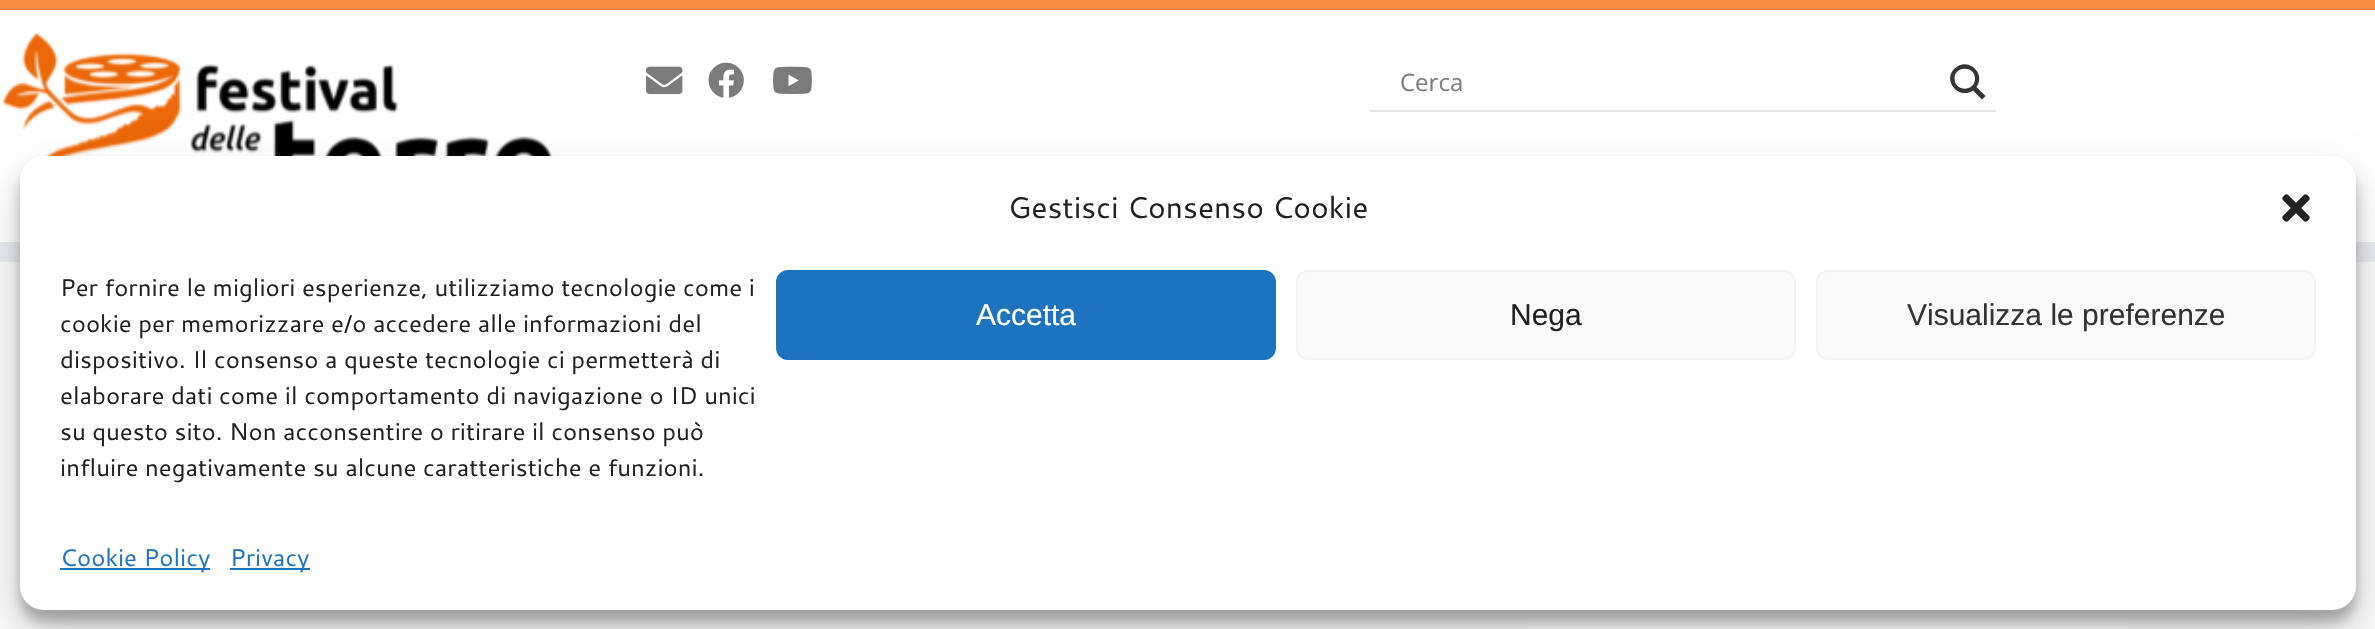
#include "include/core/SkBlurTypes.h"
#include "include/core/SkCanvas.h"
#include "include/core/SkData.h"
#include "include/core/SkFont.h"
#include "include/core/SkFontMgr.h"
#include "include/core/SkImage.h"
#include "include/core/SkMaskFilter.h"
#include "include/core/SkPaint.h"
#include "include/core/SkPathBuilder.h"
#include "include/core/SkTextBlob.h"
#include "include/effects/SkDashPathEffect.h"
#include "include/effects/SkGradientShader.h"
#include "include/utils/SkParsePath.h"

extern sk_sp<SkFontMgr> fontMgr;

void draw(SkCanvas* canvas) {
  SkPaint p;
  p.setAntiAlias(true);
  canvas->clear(SkColorSetRGB(250, 250, 250));
  p.setColor(SK_ColorWHITE);
  canvas->drawRect(SkRect::MakeLTRB(0, 10, 2375, 242), p);
  p.setColor(SkColorSetRGB(247, 140, 64));
  canvas->drawRect(SkRect::MakeLTRB(0, 0, 2375, 10), p);
  p.setColor(SkColorSetRGB(233, 234, 238));
  canvas->drawRect(SkRect::MakeLTRB(0, 242, 2375, 262), p);
  canvas->drawImageRect(SkImages::DeferredFromEncodedData(SkData::MakeFromFileName("images/1.png")), SkRect::MakeLTRB(1, 32, 553, 156), SkSamplingOptions());
  canvas->drawImageRect(SkImages::DeferredFromEncodedData(SkData::MakeFromFileName("images/2.png")), SkRect::MakeLTRB(646, 66, 683, 94), SkSamplingOptions());
  canvas->drawImageRect(SkImages::DeferredFromEncodedData(SkData::MakeFromFileName("images/3.png")), SkRect::MakeLTRB(708, 62, 744, 98), SkSamplingOptions());
  canvas->drawImageRect(SkImages::DeferredFromEncodedData(SkData::MakeFromFileName("images/4.png")), SkRect::MakeLTRB(773, 66, 812, 94), SkSamplingOptions());
  p.setColor(SkColorSetRGB(228, 228, 228));
  canvas->drawRect(SkRect::MakeLTRB(1370, 110, 1996, 112), p);
  p.setColor(SkColorSetRGB(54, 54, 54));
  canvas->drawPath(SkPathBuilder().moveTo(1985.5f, 96).lineTo(1976.5f, 87).cubicTo(1986.5f, 73, 1967.5f, 56, 1954.5f, 68.5f).cubicTo(1942, 81, 1959, 100, 1973, 90.5f).lineTo(1982, 99.5f).close().moveTo(1954.5f, 78.5f).cubicTo(1954.5f, 65.5f, 1975, 65.5f, 1975, 78.5f).cubicTo(1975, 92, 1954.5f, 92, 1954.5f, 78.5f).close().detach(), p);
  p.setColor(SkColorSetRGB(254, 254, 254));
  canvas->drawRect(SkRect::MakeLTRB(1528, 618, 2128, 629), p);
  p.setColor(SkColorSetARGB(59, 0, 0, 0));
  p.setMaskFilter(SkMaskFilter::MakeBlur(kNormal_SkBlurStyle, 6));
  canvas->drawRoundRect(SkRect::MakeLTRB(20, 168, 2356, 622), 24, 24, p);
  p.setMaskFilter(nullptr);
  p.setColor(SkColorSetARGB(48, 0, 0, 0));
  p.setMaskFilter(SkMaskFilter::MakeBlur(kNormal_SkBlurStyle, 20));
  canvas->drawRoundRect(SkRect::MakeLTRB(20, 176, 2356, 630), 24, 24, p);
  p.setMaskFilter(nullptr);
  p.setColor(SK_ColorWHITE);
  canvas->drawRoundRect(SkRect::MakeLTRB(20, 156, 2356, 610), 24, 24, p);
  canvas->drawImageRect(SkImages::DeferredFromEncodedData(SkData::MakeFromFileName("images/5.png")), SkRect::MakeLTRB(2282, 194, 2310, 222), SkSamplingOptions());
  p.setColor(SkColorSetRGB(30, 115, 190));
  canvas->drawRoundRect(SkRect::MakeLTRB(777, 271, 1275, 359), 11, 11, p);
  p.setStyle(SkPaint::kStroke_Style);
  p.setStrokeWidth(2);
  canvas->drawRoundRect(SkRect::MakeLTRB(777, 271, 1275, 359), 11, 11, p);
  p.setStyle(SkPaint::kFill_Style);
  p.setColor(SkColorSetRGB(249, 249, 249));
  canvas->drawRoundRect(SkRect::MakeLTRB(1297, 271, 1795, 359), 11, 11, p);
  p.setStyle(SkPaint::kStroke_Style);
  p.setColor(SkColorSetRGB(242, 242, 242));
  canvas->drawRoundRect(SkRect::MakeLTRB(1297, 271, 1795, 359), 11, 11, p);
  p.setStyle(SkPaint::kFill_Style);
  p.setColor(SkColorSetRGB(249, 249, 249));
  canvas->drawRoundRect(SkRect::MakeLTRB(1817, 271, 2315, 359), 11, 11, p);
  p.setStyle(SkPaint::kStroke_Style);
  p.setColor(SkColorSetRGB(242, 242, 242));
  canvas->drawRoundRect(SkRect::MakeLTRB(1817, 271, 2315, 359), 11, 11, p);
  p.setStyle(SkPaint::kFill_Style);
  p.setColor(SkColorSetRGB(30, 115, 190));
  canvas->drawRect(SkRect::MakeLTRB(60, 568, 210, 570), p);
  canvas->drawRect(SkRect::MakeLTRB(230, 568, 310, 570), p);
  SkFont font1(fontMgr->matchFamilyStyle("Open Sans", SkFontStyle::Normal()), 24);
  font1.setSubpixel(true);
  p.setColor(SkColorSetRGB(125, 125, 125));
  canvas->drawString("Cerca", 1400, 91, font1, p);
  SkFont font2(fontMgr->matchFamilyStyle("Cantarell", SkFontStyle::Normal()), 30);
  font2.setSubpixel(true);
  p.setColor(SkColorSetRGB(34, 34, 34));
  canvas->drawString("Gestisci Consenso Cookie", 1008, 218, font2, p);
  SkFont font3(fontMgr->matchFamilyStyle("Cantarell", SkFontStyle::Normal()), 24);
  font3.setSubpixel(true);
  canvas->drawString("Per fornire le migliori esperienze, utilizziamo tecnologie come i", 60, 296, font3, p);
  canvas->drawString("cookie per memorizzare e/o accedere alle informazioni del", 60, 332, font3, p);
  canvas->drawString("dispositivo. Il consenso a queste tecnologie ci permetterà di", 60, 368, font3, p);
  canvas->drawString("elaborare dati come il comportamento di navigazione o ID unici", 60, 404, font3, p);
  canvas->drawString("su questo sito. Non acconsentire o ritirare il consenso può", 60, 440, font3, p);
  canvas->drawString("influire negativamente su alcune caratteristiche e funzioni.", 60, 476, font3, p);
  SkFont font4(fontMgr->matchFamilyStyle("Liberation Sans", SkFontStyle::Normal()), 30);
  font4.setSubpixel(true);
  p.setColor(SK_ColorWHITE);
  canvas->drawString("Accetta", 976, 325, font4, p);
  p.setColor(SkColorSetRGB(34, 34, 34));
  canvas->drawString("Nega", 1510, 325, font4, p);
  p.setColor(SkColorSetRGB(51, 51, 51));
  canvas->drawString("Visualizza le preferenze", 1907, 325, font4, p);
  p.setColor(SkColorSetRGB(30, 115, 190));
  canvas->drawString("Cookie Policy", 60, 566, font3, p);
  canvas->drawString("Privacy", 230, 566, font3, p);
}
